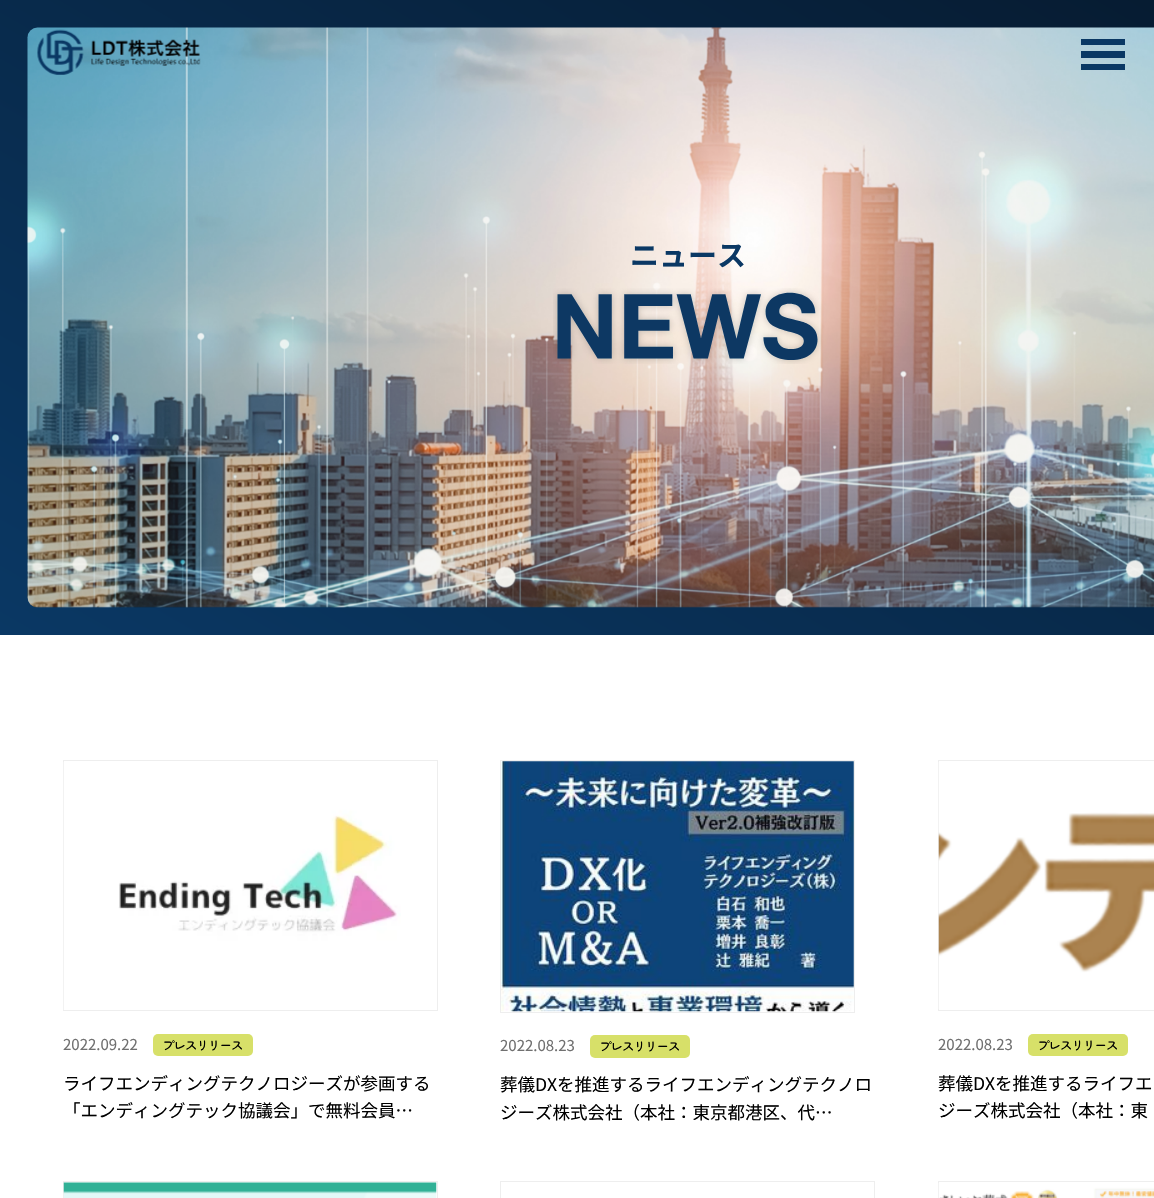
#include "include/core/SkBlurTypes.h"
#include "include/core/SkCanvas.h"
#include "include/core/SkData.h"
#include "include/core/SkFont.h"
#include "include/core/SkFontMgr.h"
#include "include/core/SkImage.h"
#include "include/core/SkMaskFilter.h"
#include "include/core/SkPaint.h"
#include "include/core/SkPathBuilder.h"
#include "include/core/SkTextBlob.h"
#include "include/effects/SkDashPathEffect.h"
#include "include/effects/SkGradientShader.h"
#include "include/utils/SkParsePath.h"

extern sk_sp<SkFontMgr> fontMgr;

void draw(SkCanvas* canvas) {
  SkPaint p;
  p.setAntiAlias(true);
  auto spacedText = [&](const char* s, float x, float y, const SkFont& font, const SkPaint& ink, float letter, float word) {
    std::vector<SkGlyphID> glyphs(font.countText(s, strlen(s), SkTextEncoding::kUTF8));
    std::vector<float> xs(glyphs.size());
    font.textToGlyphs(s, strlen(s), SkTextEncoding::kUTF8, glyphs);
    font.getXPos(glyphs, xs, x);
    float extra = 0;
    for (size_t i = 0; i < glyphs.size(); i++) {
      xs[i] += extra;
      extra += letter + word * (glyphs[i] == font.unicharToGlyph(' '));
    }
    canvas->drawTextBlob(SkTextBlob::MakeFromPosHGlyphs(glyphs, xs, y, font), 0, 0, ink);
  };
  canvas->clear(SK_ColorWHITE);
  {
    const SkColor colors[] = {SkColorSetRGB(10, 56, 100), SkColorSetRGB(6, 25, 45)};
    const float stops[] = {0, 1};
    const SkPoint ends[] = {{378, 853}, {997, -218}};
    p.setShader(SkGradientShader::MakeLinear(ends, colors, stops, 2, SkTileMode::kClamp));
    p.setAlpha(255);
  }
  canvas->drawRect(SkRect::MakeLTRB(0, 0, 1154, 635), p);
  canvas->drawImageRect(SkImages::DeferredFromEncodedData(SkData::MakeFromFileName("images/2.png")), SkRect::MakeLTRB(27, 27, 1154, 608), SkSamplingOptions());
  canvas->drawImageRect(SkImages::DeferredFromEncodedData(SkData::MakeFromFileName("images/1.png")), SkRect::MakeLTRB(37, 29, 201, 75), SkSamplingOptions());
  p.setShader(nullptr);
  p.setColor(SkColorSetRGB(10, 56, 100));
  canvas->drawRect(SkRect::MakeLTRB(1081, 39, 1125, 45), p);
  canvas->drawRect(SkRect::MakeLTRB(1081, 51, 1125, 58), p);
  canvas->drawRect(SkRect::MakeLTRB(1081, 64, 1125, 70), p);
  canvas->drawImageRect(SkImages::DeferredFromEncodedData(SkData::MakeFromFileName("images/3.png")), SkRect::MakeLTRB(553, 288, 822, 364), SkSamplingOptions());
  p.setStyle(SkPaint::kStroke_Style);
  p.setStrokeWidth(1);
  p.setColor(SkColorSetRGB(238, 238, 238));
  canvas->drawRect(SkRect::MakeLTRB(63.5f, 760.5f, 437.5f, 1010.5f), p);
  canvas->drawImageRect(SkImages::DeferredFromEncodedData(SkData::MakeFromFileName("images/4.png")), SkRect::MakeLTRB(63, 762, 401, 1010), SkSamplingOptions());
  p.setStyle(SkPaint::kFill_Style);
  p.setColor(SkColorSetRGB(215, 224, 105));
  canvas->drawRoundRect(SkRect::MakeLTRB(153, 1034, 253, 1056), 5, 5, p);
  p.setStyle(SkPaint::kStroke_Style);
  p.setColor(SkColorSetRGB(238, 238, 238));
  canvas->drawRect(SkRect::MakeLTRB(500.5f, 760.5f, 854.5f, 1012.5f), p);
  canvas->drawImageRect(SkImages::DeferredFromEncodedData(SkData::MakeFromFileName("images/5.png")), SkRect::MakeLTRB(501, 761, 854, 1012), SkSamplingOptions());
  p.setStyle(SkPaint::kFill_Style);
  p.setColor(SkColorSetRGB(215, 224, 105));
  canvas->drawRoundRect(SkRect::MakeLTRB(590, 1035, 690, 1058), 5, 5, p);
  p.setStyle(SkPaint::kStroke_Style);
  p.setColor(SkColorSetRGB(238, 238, 238));
  canvas->drawRect(SkRect::MakeLTRB(938.5f, 760.5f, 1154.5f, 1010.5f), p);
  canvas->drawImageRect(SkImages::DeferredFromEncodedData(SkData::MakeFromFileName("images/6.png")), SkRect::MakeLTRB(938, 762, 1154, 1009), SkSamplingOptions());
  p.setStyle(SkPaint::kFill_Style);
  p.setColor(SkColorSetRGB(215, 224, 105));
  canvas->drawRoundRect(SkRect::MakeLTRB(1028, 1034, 1128, 1056), 5, 5, p);
  p.setStyle(SkPaint::kStroke_Style);
  p.setColor(SkColorSetRGB(238, 238, 238));
  canvas->drawRect(SkRect::MakeLTRB(63.5f, 1181.5f, 437.5f, 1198.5f), p);
  canvas->drawImageRect(SkImages::DeferredFromEncodedData(SkData::MakeFromFileName("images/7.png")), SkRect::MakeLTRB(63, 1182, 437, 1198), SkSamplingOptions());
  canvas->drawRect(SkRect::MakeLTRB(500.5f, 1181.5f, 874.5f, 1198.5f), p);
  canvas->drawRect(SkRect::MakeLTRB(938.5f, 1181.5f, 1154.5f, 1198.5f), p);
  canvas->drawImageRect(SkImages::DeferredFromEncodedData(SkData::MakeFromFileName("images/8.png")), SkRect::MakeLTRB(938, 1183, 1154, 1198), SkSamplingOptions());
  SkFont font1(fontMgr->matchFamilyStyle("Noto Sans JP", SkFontStyle::Bold()), 29);
  font1.setSubpixel(true);
  p.setStyle(SkPaint::kFill_Style);
  p.setColor(SkColorSetRGB(10, 56, 100));
  canvas->drawString("ニュース", 630, 266, font1, p);
  SkFont font2(fontMgr->matchFamilyStyle("Noto Sans JP", SkFontStyle::Normal()), 15);
  font2.setSubpixel(true);
  p.setColor(SkColorSetRGB(112, 112, 112));
  canvas->drawString("2022.09.22", 63, 1050, font2, p);
  SkFont font3(fontMgr->matchFamilyStyle("Zen Maru Gothic", SkFontStyle(500, SkFontStyle::kNormal_Width, SkFontStyle::kUpright_Slant)), 12.5f);
  font3.setSubpixel(true);
  p.setColor(SK_ColorBLACK);
  spacedText("プレスリリース", 162, 1050, font3, p, -1, 0);
  SkFont font4(fontMgr->matchFamilyStyle("Noto Sans JP", SkFontStyle::Normal()), 17.5f);
  font4.setSubpixel(true);
  canvas->drawString("ライフエンディングテクノロジーズが参画する", 63, 1090, font4, p);
  canvas->drawString("「エンディングテック協議会」で無料会員…", 63, 1117, font4, p);
  p.setColor(SkColorSetRGB(112, 112, 112));
  canvas->drawString("2022.08.23", 500, 1051, font2, p);
  p.setColor(SK_ColorBLACK);
  spacedText("プレスリリース", 599, 1051, font3, p, -1, 0);
  canvas->drawString("葬儀DXを推進するライフエンディングテクノロ", 500, 1091, font4, p);
  canvas->drawString("ジーズ株式会社（本社：東京都港区、代…", 500, 1119, font4, p);
  p.setColor(SkColorSetRGB(112, 112, 112));
  canvas->drawString("2022.08.23", 938, 1050, font2, p);
  p.setColor(SK_ColorBLACK);
  spacedText("プレスリリース", 1037, 1050, font3, p, -1, 0);
  canvas->drawString("葬儀DXを推進するライフエ", 938, 1090, font4, p);
  canvas->drawString("ジーズ株式会社（本社：東", 938, 1117, font4, p);
}
